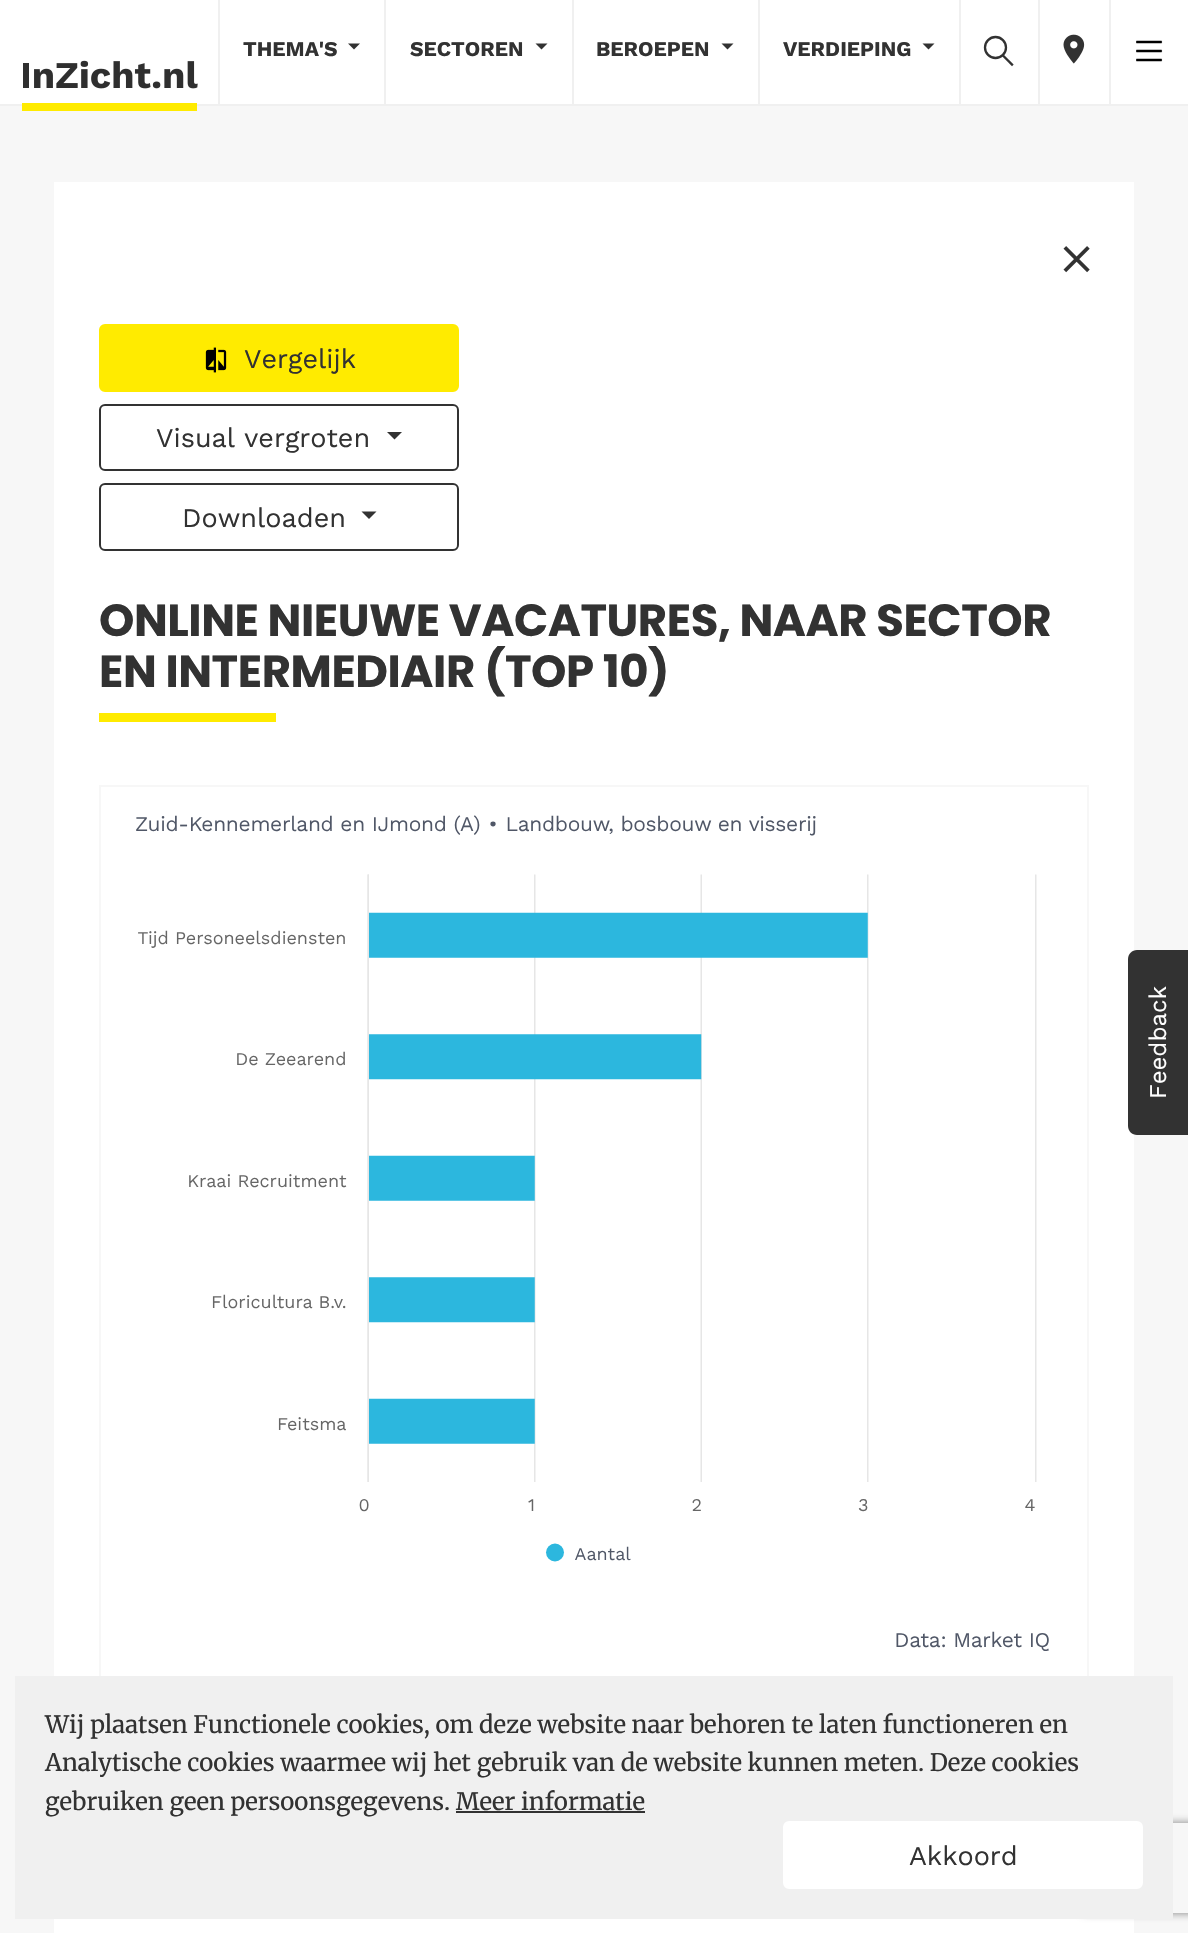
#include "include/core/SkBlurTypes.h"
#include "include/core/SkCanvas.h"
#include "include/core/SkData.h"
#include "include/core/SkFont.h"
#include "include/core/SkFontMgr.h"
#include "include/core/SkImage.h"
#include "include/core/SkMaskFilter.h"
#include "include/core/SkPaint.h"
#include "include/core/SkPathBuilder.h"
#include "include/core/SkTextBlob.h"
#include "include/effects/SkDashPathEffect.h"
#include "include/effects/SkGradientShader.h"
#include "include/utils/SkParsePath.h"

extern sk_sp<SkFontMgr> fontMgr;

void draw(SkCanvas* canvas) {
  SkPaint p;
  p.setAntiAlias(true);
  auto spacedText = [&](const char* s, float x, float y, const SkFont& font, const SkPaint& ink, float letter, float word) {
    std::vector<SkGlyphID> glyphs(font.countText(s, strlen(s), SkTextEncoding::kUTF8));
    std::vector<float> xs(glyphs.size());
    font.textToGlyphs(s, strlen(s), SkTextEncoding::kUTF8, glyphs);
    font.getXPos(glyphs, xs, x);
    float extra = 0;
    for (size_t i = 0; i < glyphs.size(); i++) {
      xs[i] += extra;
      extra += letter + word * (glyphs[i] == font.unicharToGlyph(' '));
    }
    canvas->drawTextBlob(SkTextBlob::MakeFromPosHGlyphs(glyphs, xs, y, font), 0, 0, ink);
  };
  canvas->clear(SkColorSetRGB(247, 247, 247));
  p.setColor(SK_ColorWHITE);
  canvas->drawRect(SkRect::MakeLTRB(0, 0, 1188, 104), p);
  p.setColor(SkColorSetRGB(240, 240, 240));
  canvas->drawRect(SkRect::MakeLTRB(0, 104, 1188, 106), p);
  canvas->drawRect(SkRect::MakeLTRB(218, 0, 220, 104), p);
  p.setColor(SkColorSetRGB(50, 50, 50));
  canvas->drawPath(SkPathBuilder().moveTo(348, 43.5f).lineTo(360, 43.5f).lineTo(354, 49.5f).close().detach(), p);
  p.setColor(SkColorSetRGB(240, 240, 240));
  canvas->drawRect(SkRect::MakeLTRB(384, 0, 386, 104), p);
  p.setColor(SkColorSetRGB(50, 50, 50));
  canvas->drawPath(SkPathBuilder().moveTo(535.5f, 43.5f).lineTo(547.5f, 43.5f).lineTo(541.5f, 49.5f).close().detach(), p);
  p.setColor(SkColorSetRGB(240, 240, 240));
  canvas->drawRect(SkRect::MakeLTRB(572, 0, 574, 104), p);
  p.setColor(SkColorSetRGB(50, 50, 50));
  canvas->drawPath(SkPathBuilder().moveTo(721.5f, 43.5f).lineTo(733.5f, 43.5f).lineTo(727.5f, 49.5f).close().detach(), p);
  p.setColor(SkColorSetRGB(240, 240, 240));
  canvas->drawRect(SkRect::MakeLTRB(758, 0, 760, 104), p);
  p.setColor(SkColorSetRGB(50, 50, 50));
  canvas->drawPath(SkPathBuilder().moveTo(922.5f, 43.5f).lineTo(934.5f, 43.5f).lineTo(928.5f, 49.5f).close().detach(), p);
  p.setColor(SkColorSetRGB(240, 240, 240));
  canvas->drawRect(SkRect::MakeLTRB(959, 0, 961, 104), p);
  p.setStyle(SkPaint::kStroke_Style);
  p.setStrokeWidth(2.3f);
  p.setColor(SkColorSetRGB(50, 50, 50));
  canvas->drawCircle(995.5f, 47.5f, 10.5f, p);
  p.setStrokeCap(SkPaint::kSquare_Cap);
  canvas->drawPath(SkPathBuilder().moveTo(1003, 55.5f).lineTo(1012, 64.5f).detach(), p);
  p.setStyle(SkPaint::kFill_Style);
  p.setColor(SkColorSetRGB(240, 240, 240));
  canvas->drawRect(SkRect::MakeLTRB(1038, 0, 1040, 104), p);
  canvas->drawImageRect(SkImages::DeferredFromEncodedData(SkData::MakeFromFileName("images/1.png")), SkRect::MakeLTRB(1063, 34, 1085, 64), SkSamplingOptions());
  canvas->drawRect(SkRect::MakeLTRB(1109, 0, 1111, 104), p);
  canvas->drawImageRect(SkImages::DeferredFromEncodedData(SkData::MakeFromFileName("images/2.png")), SkRect::MakeLTRB(1136, 40, 1163, 62), SkSamplingOptions());
  canvas->drawImageRect(SkImages::DeferredFromEncodedData(SkData::MakeFromFileName("images/3.png")), SkRect::MakeLTRB(22, 60, 198, 111), SkSamplingOptions());
  p.setColor(SK_ColorWHITE);
  canvas->drawRect(SkRect::MakeLTRB(54, 182, 1134, 1933), p);
  canvas->drawImageRect(SkImages::DeferredFromEncodedData(SkData::MakeFromFileName("images/4.png")), SkRect::MakeLTRB(1063, 246, 1090, 273), SkSamplingOptions());
  p.setColor(SkColorSetRGB(255, 235, 0));
  canvas->drawRoundRect(SkRect::MakeLTRB(100, 325, 458, 391), 5, 5, p);
  p.setStyle(SkPaint::kStroke_Style);
  p.setStrokeWidth(2);
  p.setStrokeCap(SkPaint::kButt_Cap);
  canvas->drawRoundRect(SkRect::MakeLTRB(100, 325, 458, 391), 5, 5, p);
  canvas->drawImageRect(SkImages::DeferredFromEncodedData(SkData::MakeFromFileName("images/5.png")), SkRect::MakeLTRB(205, 347, 227, 373), SkSamplingOptions());
  p.setColor(SkColorSetRGB(50, 50, 50));
  canvas->drawRoundRect(SkRect::MakeLTRB(100, 405, 458, 470), 5, 5, p);
  p.setStyle(SkPaint::kFill_Style);
  canvas->drawPath(SkPathBuilder().moveTo(387, 432).lineTo(402, 432).lineTo(394.5f, 439.5f).close().detach(), p);
  p.setStyle(SkPaint::kStroke_Style);
  canvas->drawRoundRect(SkRect::MakeLTRB(100, 484, 458, 550), 5, 5, p);
  p.setStyle(SkPaint::kFill_Style);
  canvas->drawPath(SkPathBuilder().moveTo(361.5f, 511.5f).lineTo(376.5f, 511.5f).lineTo(369, 519).close().detach(), p);
  p.setColor(SkColorSetRGB(255, 235, 0));
  canvas->drawRect(SkRect::MakeLTRB(99, 713, 276, 722), p);
  p.setStyle(SkPaint::kStroke_Style);
  p.setColor(SkColorSetRGB(247, 247, 247));
  canvas->drawRect(SkRect::MakeLTRB(100, 786, 1088, 1684), p);
  canvas->drawImageRect(SkImages::DeferredFromEncodedData(SkData::MakeFromFileName("images/6.png")), SkRect::MakeLTRB(136, 815, 1049, 1651), SkSamplingOptions());
  p.setStyle(SkPaint::kFill_Style);
  p.setColor(SkColorSetRGB(50, 50, 50));
  canvas->drawPath(SkPathBuilder().moveTo(1128, 1126).lineTo(1128, 959).cubicTo(1128, 954, 1132, 950, 1137, 950).lineTo(1188, 950).lineTo(1188, 1135).lineTo(1137, 1135).cubicTo(1132, 1135, 1128, 1131, 1128, 1126).close().detach(), p);
  canvas->save();
  canvas->clipPath(SkPathBuilder(SkPathFillType::kEvenOdd).moveTo(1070, 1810).lineTo(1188, 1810).lineTo(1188, 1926).lineTo(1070, 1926).close().moveTo(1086, 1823).lineTo(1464, 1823).cubicTo(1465.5f, 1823, 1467, 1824.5f, 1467, 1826).lineTo(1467, 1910).cubicTo(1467, 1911.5f, 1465.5f, 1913, 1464, 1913).lineTo(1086, 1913).cubicTo(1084.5f, 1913, 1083, 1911.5f, 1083, 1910).lineTo(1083, 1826).cubicTo(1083, 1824.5f, 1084.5f, 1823, 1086, 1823).close().detach(), true);
  p.setColor(SkColorSetRGB(128, 128, 128));
  p.setMaskFilter(SkMaskFilter::MakeBlur(kNormal_SkBlurStyle, 4));
  canvas->drawRoundRect(SkRect::MakeLTRB(1083, 1823, 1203, 1913), 3, 3, p);
  p.setMaskFilter(nullptr);
  canvas->restore();
  p.setColor(SkColorSetRGB(240, 240, 240));
  canvas->drawRect(SkRect::MakeLTRB(15, 1676, 1173, 1919), p);
  p.setColor(SkColorSetRGB(50, 50, 50));
  canvas->drawRect(SkRect::MakeLTRB(456, 1811, 645, 1813), p);
  p.setColor(SK_ColorWHITE);
  canvas->drawRoundRect(SkRect::MakeLTRB(784, 1822, 1142, 1888), 5, 5, p);
  p.setStyle(SkPaint::kStroke_Style);
  canvas->drawRoundRect(SkRect::MakeLTRB(784, 1822, 1142, 1888), 5, 5, p);
  SkFont font1(fontMgr->matchFamilyStyle("Work Sans", SkFontStyle::Bold()), 21);
  font1.setSubpixel(true);
  p.setStyle(SkPaint::kFill_Style);
  p.setColor(SkColorSetRGB(50, 50, 50));
  canvas->drawString("THEMA'S", 243, 56, font1, p);
  canvas->drawString("SECTOREN", 410, 56, font1, p);
  canvas->drawString("BEROEPEN", 596, 56, font1, p);
  canvas->drawString("VERDIEPING", 783, 56, font1, p);
  SkFont font2(fontMgr->matchFamilyStyle("Work Sans", SkFontStyle::Normal()), 27);
  font2.setSubpixel(true);
  canvas->drawString("Vergelijk", 244, 368, font2, p);
  canvas->drawString("Visual vergroten", 156, 447, font2, p);
  canvas->drawString("Downloaden", 182, 527, font2, p);
  SkFont font3(fontMgr->matchFamilyStyle("Poppins", SkFontStyle::Bold()), 45);
  font3.setSubpixel(true);
  spacedText("ONLINE NIEUWE VACATURES, NAAR SECTOR", 99, 636, font3, p, -0.45f, 0);
  spacedText("EN INTERMEDIAIR (TOP 10)", 99, 687, font3, p, -0.45f, 0);
  SkFont font4(fontMgr->matchFamilyStyle("Work Sans", SkFontStyle::Normal()), 24);
  font4.setSubpixel(true);
  p.setColor(SK_ColorWHITE);
  canvas->save();
  canvas->rotate(-90, 1166, 1099);
  canvas->drawString("Feedback", 1166, 1099, font4, p);
  canvas->restore();
  SkFont font5(fontMgr->matchFamilyStyle("Merriweather", SkFontStyle::Normal()), 24);
  font5.setSubpixel(true);
  p.setColor(SkColorSetRGB(50, 50, 50));
  canvas->drawString("Wij plaatsen Functionele cookies, om deze website naar behoren te laten functioneren en", 45, 1733, font5, p);
  canvas->drawString("Analytische cookies waarmee wij het gebruik van de website kunnen meten. Deze cookies", 45, 1771, font5, p);
  canvas->drawString("gebruiken geen persoonsgegevens. Meer informatie", 45, 1810, font5, p);
  canvas->drawString("Akkoord", 909, 1865, font2, p);
}
